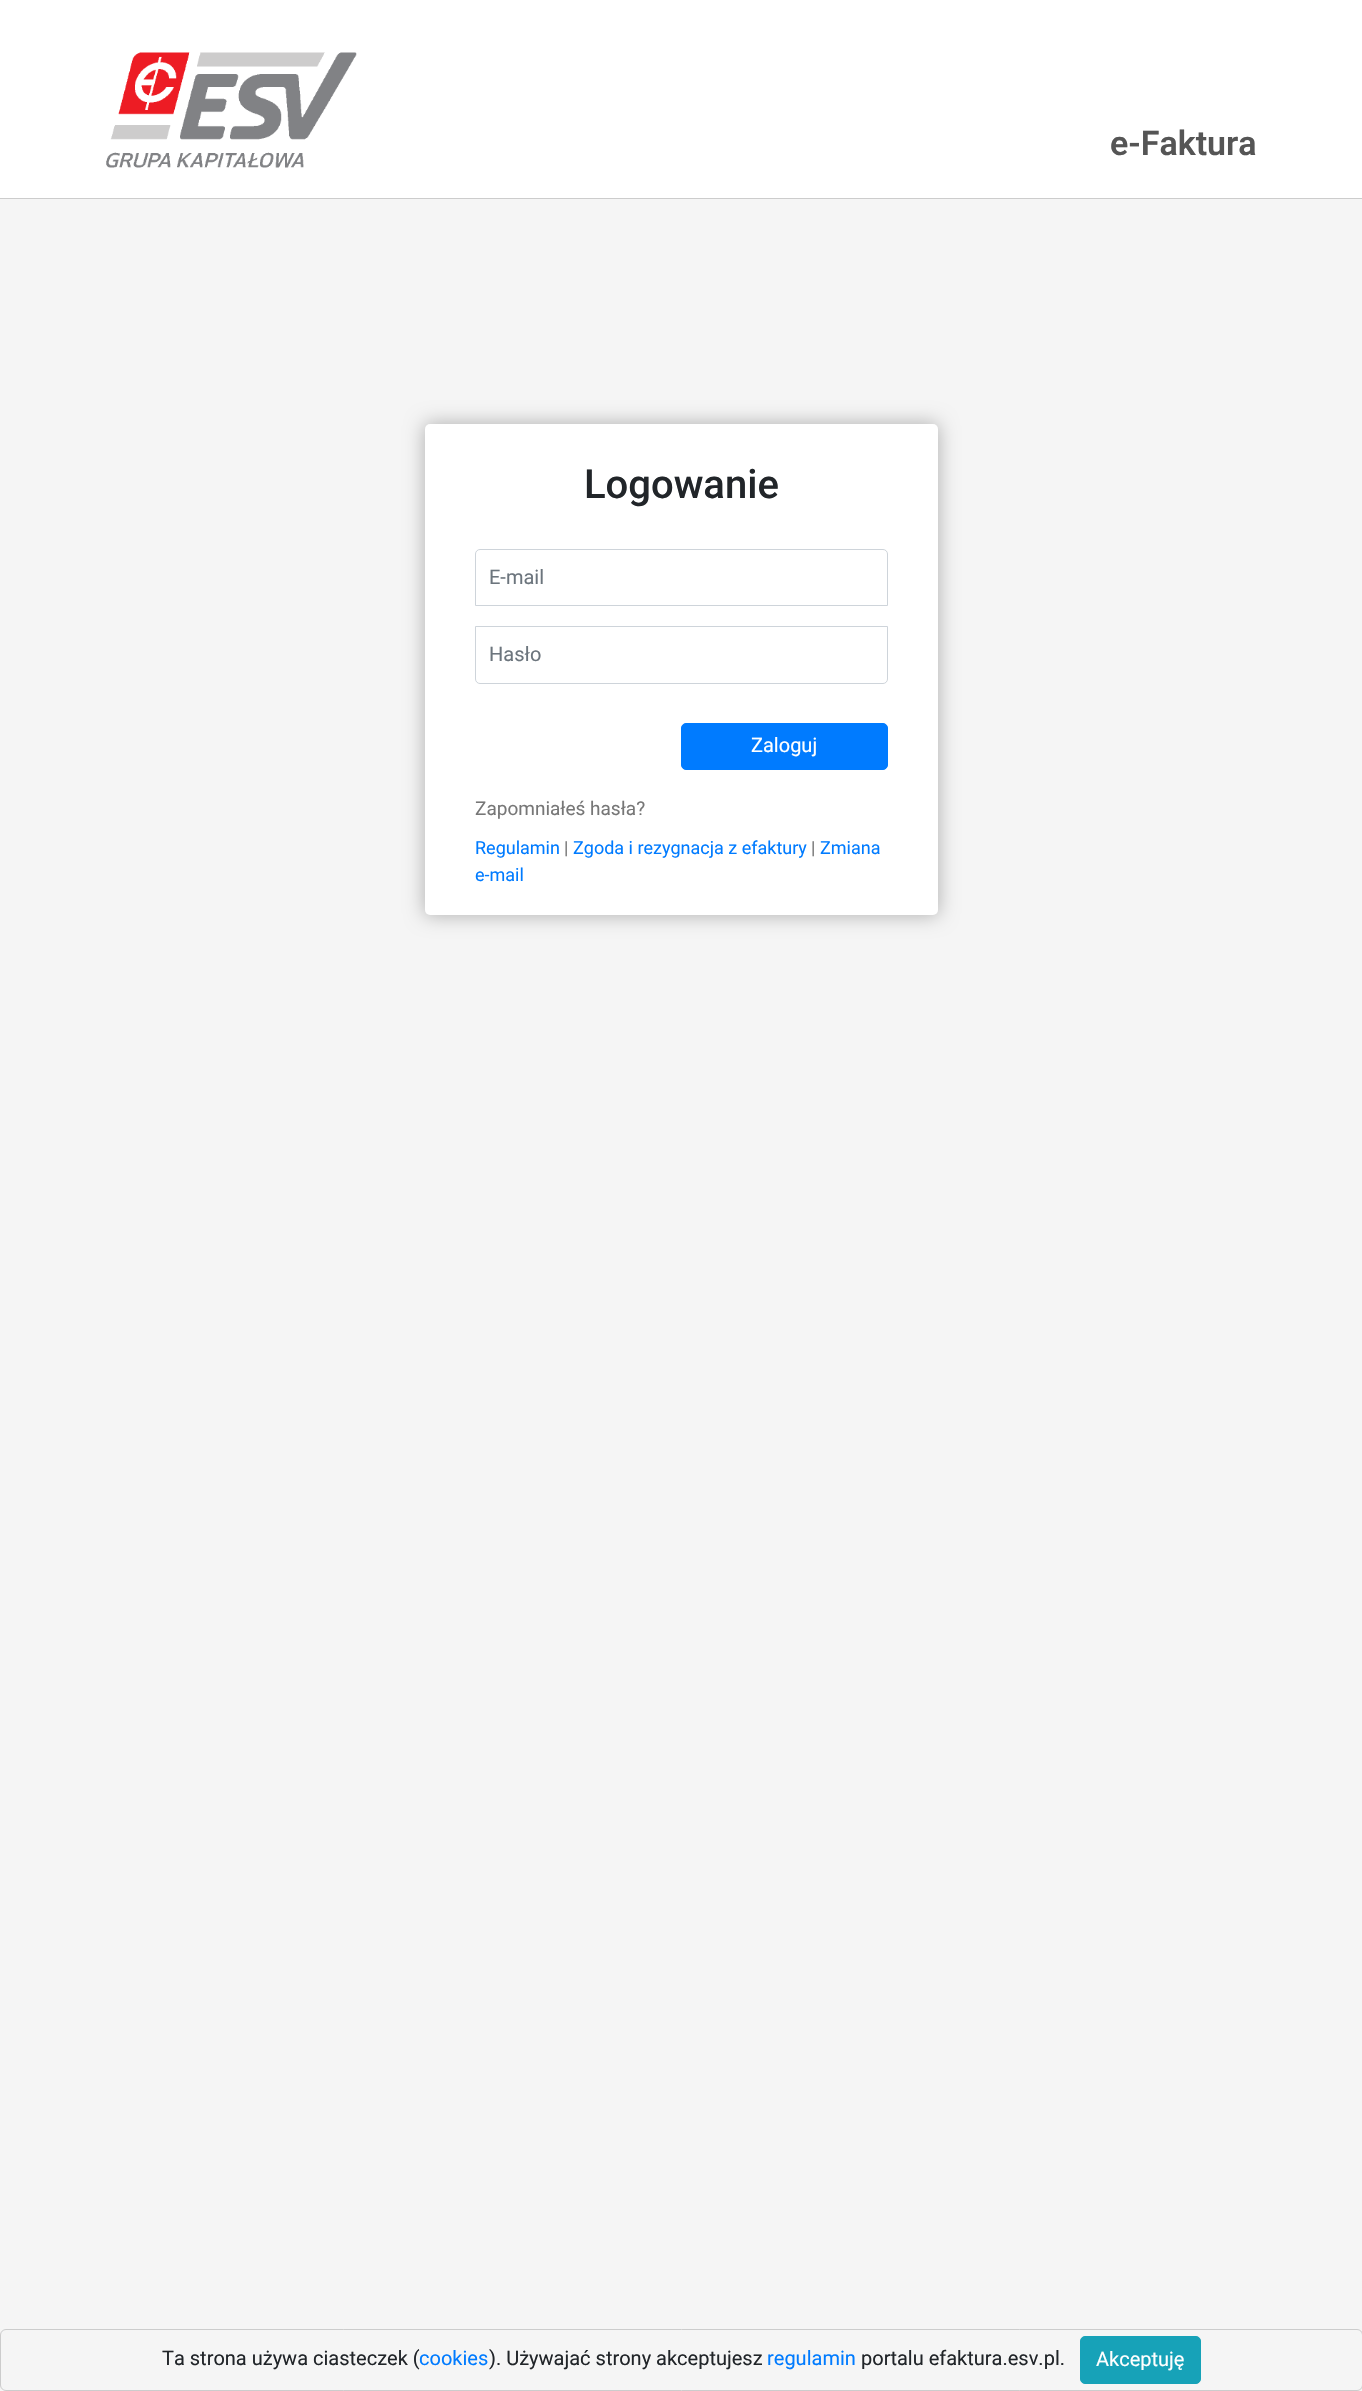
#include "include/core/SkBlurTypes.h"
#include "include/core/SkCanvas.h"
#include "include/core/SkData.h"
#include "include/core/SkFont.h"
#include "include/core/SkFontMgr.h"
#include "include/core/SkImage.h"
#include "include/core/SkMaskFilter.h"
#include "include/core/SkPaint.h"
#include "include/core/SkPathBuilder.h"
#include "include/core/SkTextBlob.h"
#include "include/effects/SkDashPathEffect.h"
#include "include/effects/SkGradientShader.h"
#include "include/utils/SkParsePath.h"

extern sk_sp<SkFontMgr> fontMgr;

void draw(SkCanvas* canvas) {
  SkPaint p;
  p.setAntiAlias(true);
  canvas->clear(SkColorSetRGB(245, 245, 245));
  p.setColor(SK_ColorWHITE);
  canvas->drawRect(SkRect::MakeLTRB(0, 0, 1362, 198), p);
  p.setColor(SkColorSetRGB(204, 204, 204));
  canvas->drawRect(SkRect::MakeLTRB(0, 198, 1362, 199), p);
  canvas->drawImageRect(SkImages::DeferredFromEncodedData(SkData::MakeFromFileName("images/1.png")), SkRect::MakeLTRB(106, 52, 357, 168), SkSamplingOptions());
  p.setColor(SkColorSetRGB(178, 178, 178));
  p.setMaskFilter(SkMaskFilter::MakeBlur(kNormal_SkBlurStyle, 9.5f));
  canvas->drawRoundRect(SkRect::MakeLTRB(424, 423, 939, 916), 6, 6, p);
  p.setMaskFilter(nullptr);
  p.setColor(SK_ColorWHITE);
  canvas->drawRoundRect(SkRect::MakeLTRB(425, 424, 938, 915), 5, 5, p);
  p.setStyle(SkPaint::kStroke_Style);
  p.setStrokeWidth(1);
  p.setColor(SkColorSetRGB(206, 212, 218));
  canvas->drawPath(SkPathBuilder().moveTo(480, 549.5f).lineTo(883, 549.5f).cubicTo(885.5f, 549.5f, 887.5f, 551.5f, 887.5f, 554).lineTo(887.5f, 605.5f).lineTo(475.5f, 605.5f).lineTo(475.5f, 554).cubicTo(475.5f, 551.5f, 477.5f, 549.5f, 480, 549.5f).close().detach(), p);
  canvas->drawPath(SkPathBuilder().moveTo(475.5f, 626.5f).lineTo(887.5f, 626.5f).lineTo(887.5f, 679).cubicTo(887.5f, 681.5f, 885.5f, 683.5f, 883, 683.5f).lineTo(480, 683.5f).cubicTo(477.5f, 683.5f, 475.5f, 681.5f, 475.5f, 679).close().detach(), p);
  p.setStyle(SkPaint::kFill_Style);
  p.setColor(SkColorSetRGB(0, 123, 255));
  canvas->drawRoundRect(SkRect::MakeLTRB(681.5f, 723.5f, 887.5f, 769.5f), 4.5f, 4.5f, p);
  p.setStyle(SkPaint::kStroke_Style);
  canvas->drawRoundRect(SkRect::MakeLTRB(681.5f, 723.5f, 887.5f, 769.5f), 4.5f, 4.5f, p);
  p.setColor(SkColorSetRGB(204, 204, 204));
  canvas->drawRoundRect(SkRect::MakeLTRB(0.5f, 2329.5f, 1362.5f, 2390.5f), 5.5f, 5.5f, p);
  p.setStyle(SkPaint::kFill_Style);
  p.setColor(SkColorSetRGB(23, 162, 184));
  canvas->drawRoundRect(SkRect::MakeLTRB(1080.5f, 2336.5f, 1200.5f, 2383.5f), 4.5f, 4.5f, p);
  p.setStyle(SkPaint::kStroke_Style);
  canvas->drawRoundRect(SkRect::MakeLTRB(1080.5f, 2336.5f, 1200.5f, 2383.5f), 4.5f, 4.5f, p);
  SkFont font1(fontMgr->matchFamilyStyle("Roboto", SkFontStyle(600, SkFontStyle::kNormal_Width, SkFontStyle::kUpright_Slant)), 34);
  font1.setSubpixel(true);
  p.setStyle(SkPaint::kFill_Style);
  p.setColor(SkColorSetRGB(85, 85, 85));
  canvas->drawString("e-Faktura", 1110, 155, font1, p);
  SkFont font2(fontMgr->matchFamilyStyle("Roboto", SkFontStyle(500, SkFontStyle::kNormal_Width, SkFontStyle::kUpright_Slant)), 40);
  font2.setSubpixel(true);
  p.setColor(SkColorSetRGB(33, 37, 41));
  canvas->drawString("Logowanie", 584, 498, font2, p);
  SkFont font3(fontMgr->matchFamilyStyle("Roboto", SkFontStyle::Normal()), 20);
  font3.setSubpixel(true);
  p.setColor(SkColorSetRGB(108, 117, 125));
  canvas->drawString("E-mail", 489, 584, font3, p);
  canvas->drawString("Hasło", 489, 661, font3, p);
  p.setColor(SK_ColorWHITE);
  canvas->drawString("Zaloguj", 751, 752, font3, p);
  SkFont font4(fontMgr->matchFamilyStyle("Roboto", SkFontStyle::Normal()), 19);
  font4.setSubpixel(true);
  p.setColor(SkColorSetRGB(119, 119, 119));
  canvas->drawString("Zapomniałeś hasła?", 475, 815, font4, p);
  SkFont font5(fontMgr->matchFamilyStyle("Roboto", SkFontStyle::Normal()), 18);
  font5.setSubpixel(true);
  p.setColor(SkColorSetRGB(0, 123, 255));
  canvas->drawString("Regulamin", 475, 854, font5, p);
  p.setColor(SkColorSetRGB(119, 119, 119));
  canvas->drawString("|", 564, 854, font5, p);
  p.setColor(SkColorSetRGB(0, 123, 255));
  canvas->drawString("Zgoda i rezygnacja z efaktury", 573, 854, font5, p);
  p.setColor(SkColorSetRGB(119, 119, 119));
  canvas->drawString("|", 811, 854, font5, p);
  p.setColor(SkColorSetRGB(0, 123, 255));
  canvas->drawString("Zmiana", 820, 854, font5, p);
  canvas->drawString("e-mail", 475, 881, font5, p);
  p.setColor(SkColorSetRGB(33, 37, 41));
  canvas->drawString("Ta strona używa ciasteczek (", 162, 2365, font3, p);
  p.setColor(SkColorSetRGB(0, 123, 255));
  canvas->drawString("cookies", 419, 2365, font3, p);
  p.setColor(SkColorSetRGB(33, 37, 41));
  canvas->drawString("). Używajać strony akceptujesz", 489, 2365, font3, p);
  p.setColor(SkColorSetRGB(0, 123, 255));
  canvas->drawString("regulamin", 767, 2365, font3, p);
  p.setColor(SkColorSetRGB(33, 37, 41));
  canvas->drawString("portalu efaktura.esv.pl.", 861, 2365, font3, p);
  p.setColor(SK_ColorWHITE);
  canvas->drawString("Akceptuję", 1096, 2366, font3, p);
}
